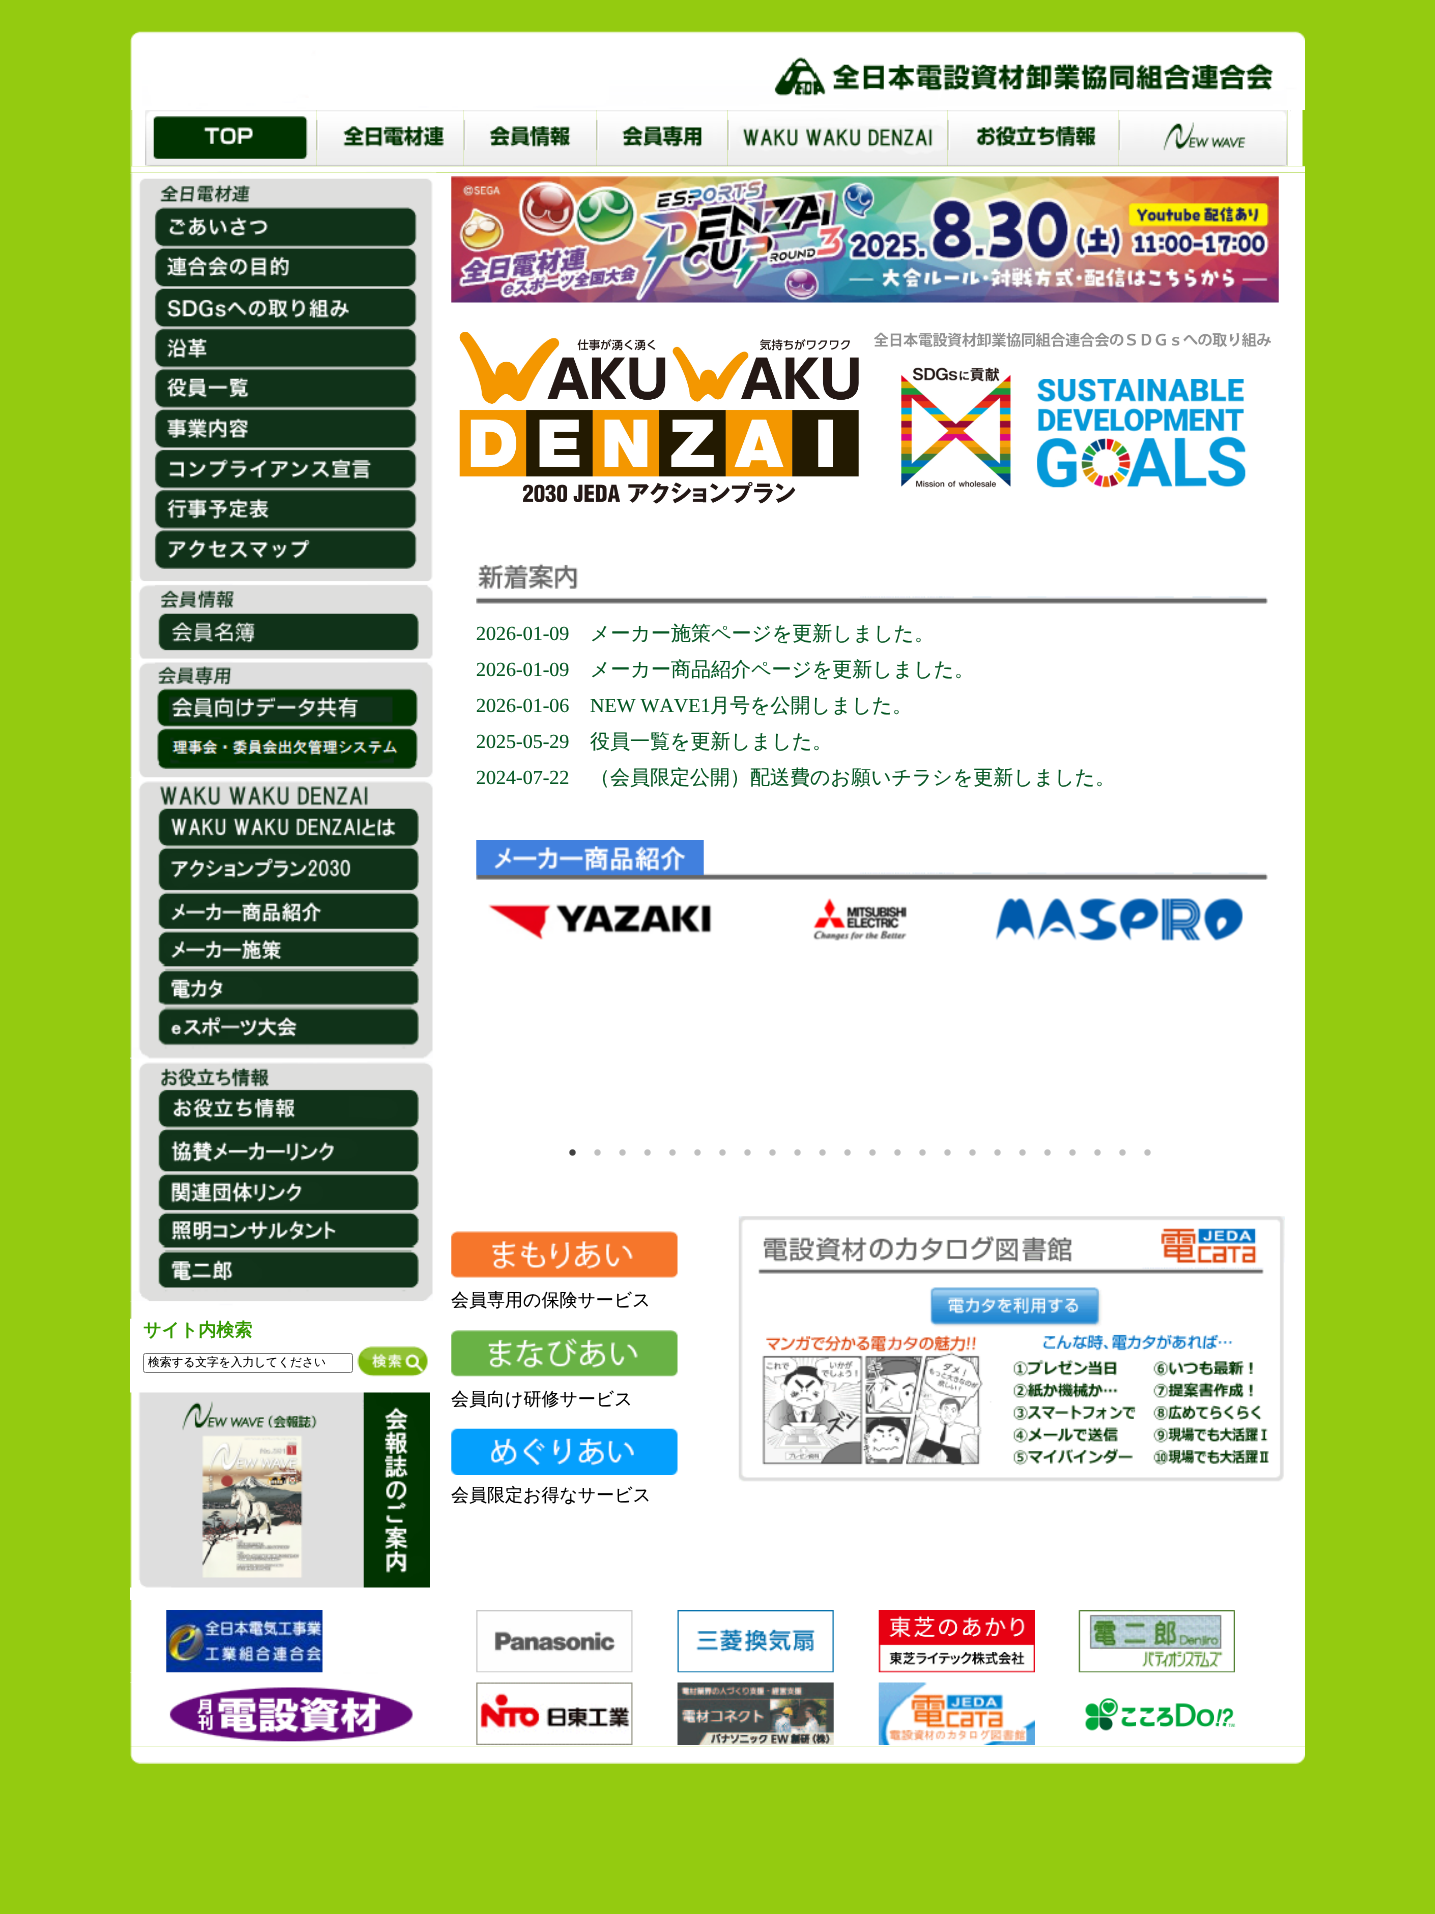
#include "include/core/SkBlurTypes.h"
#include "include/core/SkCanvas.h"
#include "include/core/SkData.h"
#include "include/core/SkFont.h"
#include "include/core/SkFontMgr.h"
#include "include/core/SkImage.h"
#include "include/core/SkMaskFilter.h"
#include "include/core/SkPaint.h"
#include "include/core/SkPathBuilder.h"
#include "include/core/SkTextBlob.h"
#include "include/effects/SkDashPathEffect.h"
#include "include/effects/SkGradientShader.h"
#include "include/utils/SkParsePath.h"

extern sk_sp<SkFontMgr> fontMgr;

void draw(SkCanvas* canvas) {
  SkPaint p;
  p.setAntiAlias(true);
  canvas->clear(SkColorSetRGB(148, 203, 16));
  canvas->drawImageRect(SkImages::DeferredFromEncodedData(SkData::MakeFromFileName("images/1.png")), SkRect::MakeLTRB(130, 31, 1305, 110), SkSamplingOptions());
  canvas->drawImageRect(SkImages::DeferredFromEncodedData(SkData::MakeFromFileName("images/2.png")), SkRect::MakeLTRB(130, 110, 145, 167), SkSamplingOptions());
  canvas->drawImageRect(SkImages::DeferredFromEncodedData(SkData::MakeFromFileName("images/3.png")), SkRect::MakeLTRB(145, 110, 317, 167), SkSamplingOptions());
  canvas->drawImageRect(SkImages::DeferredFromEncodedData(SkData::MakeFromFileName("images/4.png")), SkRect::MakeLTRB(316, 110, 464, 167), SkSamplingOptions());
  canvas->drawImageRect(SkImages::DeferredFromEncodedData(SkData::MakeFromFileName("images/5.png")), SkRect::MakeLTRB(463, 110, 597, 167), SkSamplingOptions());
  canvas->drawImageRect(SkImages::DeferredFromEncodedData(SkData::MakeFromFileName("images/6.png")), SkRect::MakeLTRB(596, 110, 728, 167), SkSamplingOptions());
  canvas->drawImageRect(SkImages::DeferredFromEncodedData(SkData::MakeFromFileName("images/7.png")), SkRect::MakeLTRB(727, 110, 948, 167), SkSamplingOptions());
  canvas->drawImageRect(SkImages::DeferredFromEncodedData(SkData::MakeFromFileName("images/8.png")), SkRect::MakeLTRB(947, 110, 1119, 167), SkSamplingOptions());
  canvas->drawImageRect(SkImages::DeferredFromEncodedData(SkData::MakeFromFileName("images/9.png")), SkRect::MakeLTRB(1118, 110, 1288, 167), SkSamplingOptions());
  canvas->drawImageRect(SkImages::DeferredFromEncodedData(SkData::MakeFromFileName("images/10.png")), SkRect::MakeLTRB(1287, 110, 1303, 167), SkSamplingOptions());
  canvas->drawImageRect(SkImages::DeferredFromEncodedData(SkData::MakeFromFileName("images/11.png")), SkRect::MakeLTRB(130, 166, 1305, 173), SkSamplingOptions());
  p.setColor(SK_ColorWHITE);
  canvas->drawRect(SkRect::MakeLTRB(130, 173, 1305, 1745), p);
  canvas->drawImageRect(SkImages::DeferredFromEncodedData(SkData::MakeFromFileName("images/12.png")), SkRect::MakeLTRB(130, 172, 437, 582), SkSamplingOptions());
  canvas->drawImageRect(SkImages::DeferredFromEncodedData(SkData::MakeFromFileName("images/13.png")), SkRect::MakeLTRB(130, 581, 433, 659), SkSamplingOptions());
  canvas->drawImageRect(SkImages::DeferredFromEncodedData(SkData::MakeFromFileName("images/14.png")), SkRect::MakeLTRB(130, 658, 433, 778), SkSamplingOptions());
  canvas->drawImageRect(SkImages::DeferredFromEncodedData(SkData::MakeFromFileName("images/15.png")), SkRect::MakeLTRB(130, 777, 433, 1059), SkSamplingOptions());
  canvas->drawImageRect(SkImages::DeferredFromEncodedData(SkData::MakeFromFileName("images/16.png")), SkRect::MakeLTRB(130, 1058, 433, 1302), SkSamplingOptions());
  canvas->drawImageRect(SkImages::DeferredFromEncodedData(SkData::MakeFromFileName("images/17.png")), SkRect::MakeLTRB(130, 1301, 424, 1319), SkSamplingOptions());
  p.setStyle(SkPaint::kStroke_Style);
  p.setStrokeWidth(1);
  p.setColor(SkColorSetRGB(118, 118, 118));
  canvas->drawRoundRect(SkRect::MakeLTRB(143.5f, 1353.5f, 352.5f, 1372.5f), 2, 2, p);
  canvas->drawImageRect(SkImages::DeferredFromEncodedData(SkData::MakeFromFileName("images/18.png")), SkRect::MakeLTRB(357, 1346, 428, 1377), SkSamplingOptions());
  canvas->drawImageRect(SkImages::DeferredFromEncodedData(SkData::MakeFromFileName("images/19.png")), SkRect::MakeLTRB(130, 1392, 430, 1588), SkSamplingOptions());
  canvas->drawImageRect(SkImages::DeferredFromEncodedData(SkData::MakeFromFileName("images/20.png")), SkRect::MakeLTRB(451, 176, 1279, 303), SkSamplingOptions());
  canvas->drawImageRect(SkImages::DeferredFromEncodedData(SkData::MakeFromFileName("images/21.png")), SkRect::MakeLTRB(459, 332, 859, 504), SkSamplingOptions());
  canvas->drawImageRect(SkImages::DeferredFromEncodedData(SkData::MakeFromFileName("images/22.png")), SkRect::MakeLTRB(874, 332, 1271, 488), SkSamplingOptions());
  canvas->drawImageRect(SkImages::DeferredFromEncodedData(SkData::MakeFromFileName("images/23.png")), SkRect::MakeLTRB(476, 563, 1268, 604), SkSamplingOptions());
  canvas->drawImageRect(SkImages::DeferredFromEncodedData(SkData::MakeFromFileName("images/24.png")), SkRect::MakeLTRB(476, 840, 1268, 880), SkSamplingOptions());
  canvas->drawImageRect(SkImages::DeferredFromEncodedData(SkData::MakeFromFileName("images/25.png")), SkRect::MakeLTRB(488, 904, 712, 940), SkSamplingOptions());
  canvas->drawImageRect(SkImages::DeferredFromEncodedData(SkData::MakeFromFileName("images/26.png")), SkRect::MakeLTRB(813, 898, 907, 941), SkSamplingOptions());
  canvas->drawImageRect(SkImages::DeferredFromEncodedData(SkData::MakeFromFileName("images/27.png")), SkRect::MakeLTRB(995, 898, 1243, 941), SkSamplingOptions());
  canvas->drawImageRect(SkImages::DeferredFromEncodedData(SkData::MakeFromFileName("images/28.png")), SkRect::MakeLTRB(569, 1149, 576, 1156), SkSamplingOptions());
  canvas->drawImageRect(SkImages::DeferredFromEncodedData(SkData::MakeFromFileName("images/29.png")), SkRect::MakeLTRB(594, 1149, 601, 1156), SkSamplingOptions());
  canvas->drawImageRect(SkImages::DeferredFromEncodedData(SkData::MakeFromFileName("images/29.png")), SkRect::MakeLTRB(619, 1149, 626, 1156), SkSamplingOptions());
  canvas->drawImageRect(SkImages::DeferredFromEncodedData(SkData::MakeFromFileName("images/29.png")), SkRect::MakeLTRB(644, 1149, 651, 1156), SkSamplingOptions());
  canvas->drawImageRect(SkImages::DeferredFromEncodedData(SkData::MakeFromFileName("images/29.png")), SkRect::MakeLTRB(669, 1149, 676, 1156), SkSamplingOptions());
  canvas->drawImageRect(SkImages::DeferredFromEncodedData(SkData::MakeFromFileName("images/29.png")), SkRect::MakeLTRB(694, 1149, 701, 1156), SkSamplingOptions());
  canvas->drawImageRect(SkImages::DeferredFromEncodedData(SkData::MakeFromFileName("images/29.png")), SkRect::MakeLTRB(719, 1149, 726, 1156), SkSamplingOptions());
  canvas->drawImageRect(SkImages::DeferredFromEncodedData(SkData::MakeFromFileName("images/29.png")), SkRect::MakeLTRB(744, 1149, 751, 1156), SkSamplingOptions());
  canvas->drawImageRect(SkImages::DeferredFromEncodedData(SkData::MakeFromFileName("images/29.png")), SkRect::MakeLTRB(769, 1149, 776, 1156), SkSamplingOptions());
  canvas->drawImageRect(SkImages::DeferredFromEncodedData(SkData::MakeFromFileName("images/29.png")), SkRect::MakeLTRB(794, 1149, 801, 1156), SkSamplingOptions());
  canvas->drawImageRect(SkImages::DeferredFromEncodedData(SkData::MakeFromFileName("images/29.png")), SkRect::MakeLTRB(819, 1149, 826, 1156), SkSamplingOptions());
  canvas->drawImageRect(SkImages::DeferredFromEncodedData(SkData::MakeFromFileName("images/29.png")), SkRect::MakeLTRB(844, 1149, 851, 1156), SkSamplingOptions());
  canvas->drawImageRect(SkImages::DeferredFromEncodedData(SkData::MakeFromFileName("images/29.png")), SkRect::MakeLTRB(869, 1149, 876, 1156), SkSamplingOptions());
  canvas->drawImageRect(SkImages::DeferredFromEncodedData(SkData::MakeFromFileName("images/29.png")), SkRect::MakeLTRB(894, 1149, 901, 1156), SkSamplingOptions());
  canvas->drawImageRect(SkImages::DeferredFromEncodedData(SkData::MakeFromFileName("images/29.png")), SkRect::MakeLTRB(919, 1149, 926, 1156), SkSamplingOptions());
  canvas->drawImageRect(SkImages::DeferredFromEncodedData(SkData::MakeFromFileName("images/29.png")), SkRect::MakeLTRB(944, 1149, 951, 1156), SkSamplingOptions());
  canvas->drawImageRect(SkImages::DeferredFromEncodedData(SkData::MakeFromFileName("images/29.png")), SkRect::MakeLTRB(969, 1149, 976, 1156), SkSamplingOptions());
  canvas->drawImageRect(SkImages::DeferredFromEncodedData(SkData::MakeFromFileName("images/29.png")), SkRect::MakeLTRB(994, 1149, 1001, 1156), SkSamplingOptions());
  canvas->drawImageRect(SkImages::DeferredFromEncodedData(SkData::MakeFromFileName("images/29.png")), SkRect::MakeLTRB(1019, 1149, 1026, 1156), SkSamplingOptions());
  canvas->drawImageRect(SkImages::DeferredFromEncodedData(SkData::MakeFromFileName("images/29.png")), SkRect::MakeLTRB(1044, 1149, 1051, 1156), SkSamplingOptions());
  canvas->drawImageRect(SkImages::DeferredFromEncodedData(SkData::MakeFromFileName("images/29.png")), SkRect::MakeLTRB(1069, 1149, 1076, 1156), SkSamplingOptions());
  canvas->drawImageRect(SkImages::DeferredFromEncodedData(SkData::MakeFromFileName("images/29.png")), SkRect::MakeLTRB(1094, 1149, 1101, 1156), SkSamplingOptions());
  canvas->drawImageRect(SkImages::DeferredFromEncodedData(SkData::MakeFromFileName("images/29.png")), SkRect::MakeLTRB(1119, 1149, 1126, 1156), SkSamplingOptions());
  canvas->drawImageRect(SkImages::DeferredFromEncodedData(SkData::MakeFromFileName("images/29.png")), SkRect::MakeLTRB(1144, 1149, 1151, 1156), SkSamplingOptions());
  canvas->drawImageRect(SkImages::DeferredFromEncodedData(SkData::MakeFromFileName("images/30.png")), SkRect::MakeLTRB(451, 1231, 678, 1278), SkSamplingOptions());
  canvas->drawImageRect(SkImages::DeferredFromEncodedData(SkData::MakeFromFileName("images/31.png")), SkRect::MakeLTRB(738, 1216, 1285, 1482), SkSamplingOptions());
  canvas->drawImageRect(SkImages::DeferredFromEncodedData(SkData::MakeFromFileName("images/32.png")), SkRect::MakeLTRB(451, 1330, 678, 1377), SkSamplingOptions());
  canvas->drawImageRect(SkImages::DeferredFromEncodedData(SkData::MakeFromFileName("images/33.png")), SkRect::MakeLTRB(451, 1428, 678, 1475), SkSamplingOptions());
  canvas->drawImageRect(SkImages::DeferredFromEncodedData(SkData::MakeFromFileName("images/34.png")), SkRect::MakeLTRB(130, 1600, 132, 1610), SkSamplingOptions());
  canvas->drawImageRect(SkImages::DeferredFromEncodedData(SkData::MakeFromFileName("images/35.png")), SkRect::MakeLTRB(130, 1610, 132, 1673), SkSamplingOptions());
  canvas->drawImageRect(SkImages::DeferredFromEncodedData(SkData::MakeFromFileName("images/36.png")), SkRect::MakeLTRB(166, 1610, 323, 1673), SkSamplingOptions());
  canvas->drawImageRect(SkImages::DeferredFromEncodedData(SkData::MakeFromFileName("images/37.png")), SkRect::MakeLTRB(476, 1610, 633, 1673), SkSamplingOptions());
  canvas->drawImageRect(SkImages::DeferredFromEncodedData(SkData::MakeFromFileName("images/38.png")), SkRect::MakeLTRB(677, 1610, 834, 1673), SkSamplingOptions());
  canvas->drawImageRect(SkImages::DeferredFromEncodedData(SkData::MakeFromFileName("images/39.png")), SkRect::MakeLTRB(878, 1610, 1035, 1673), SkSamplingOptions());
  canvas->drawImageRect(SkImages::DeferredFromEncodedData(SkData::MakeFromFileName("images/40.png")), SkRect::MakeLTRB(1078, 1610, 1235, 1673), SkSamplingOptions());
  canvas->drawImageRect(SkImages::DeferredFromEncodedData(SkData::MakeFromFileName("images/41.png")), SkRect::MakeLTRB(130, 1672, 1235, 1683), SkSamplingOptions());
  canvas->drawImageRect(SkImages::DeferredFromEncodedData(SkData::MakeFromFileName("images/42.png")), SkRect::MakeLTRB(130, 1682, 132, 1745), SkSamplingOptions());
  canvas->drawImageRect(SkImages::DeferredFromEncodedData(SkData::MakeFromFileName("images/43.png")), SkRect::MakeLTRB(169, 1687, 413, 1742), SkSamplingOptions());
  canvas->drawImageRect(SkImages::DeferredFromEncodedData(SkData::MakeFromFileName("images/44.png")), SkRect::MakeLTRB(476, 1682, 633, 1745), SkSamplingOptions());
  canvas->drawImageRect(SkImages::DeferredFromEncodedData(SkData::MakeFromFileName("images/45.png")), SkRect::MakeLTRB(677, 1682, 834, 1745), SkSamplingOptions());
  canvas->drawImageRect(SkImages::DeferredFromEncodedData(SkData::MakeFromFileName("images/46.png")), SkRect::MakeLTRB(878, 1682, 1035, 1745), SkSamplingOptions());
  canvas->drawImageRect(SkImages::DeferredFromEncodedData(SkData::MakeFromFileName("images/47.png")), SkRect::MakeLTRB(1085, 1698, 1236, 1731), SkSamplingOptions());
  canvas->drawImageRect(SkImages::DeferredFromEncodedData(SkData::MakeFromFileName("images/48.png")), SkRect::MakeLTRB(130, 1745, 1305, 1747), SkSamplingOptions());
  canvas->drawImageRect(SkImages::DeferredFromEncodedData(SkData::MakeFromFileName("images/49.png")), SkRect::MakeLTRB(130, 1746, 1305, 1764), SkSamplingOptions());
  SkFont font1(fontMgr->matchFamilyStyle("WenQuanYi Zen Hei", SkFontStyle::Bold()), 18);
  font1.setSubpixel(true);
  p.setStyle(SkPaint::kFill_Style);
  p.setColor(SkColorSetRGB(51, 153, 0));
  canvas->drawString("サイト内検索", 143, 1336, font1, p);
  SkFont font2(fontMgr->matchFamilyStyle("WenQuanYi Zen Hei", SkFontStyle(500, SkFontStyle::kNormal_Width, SkFontStyle::kUpright_Slant)), 11.7f);
  font2.setSubpixel(true);
  p.setColor(SK_ColorBLACK);
  canvas->drawString("検索する文字を入力してください", 148, 1366, font2, p);
  SkFont font3(fontMgr->matchFamilyStyle("Liberation Serif", SkFontStyle::Normal()), 20);
  font3.setSubpixel(true);
  p.setColor(SkColorSetRGB(5, 87, 35));
  canvas->drawString("2026-01-09", 476, 640, font3, p);
  SkFont font4(fontMgr->matchFamilyStyle("WenQuanYi Zen Hei", SkFontStyle(500, SkFontStyle::kNormal_Width, SkFontStyle::kUpright_Slant)), 20);
  font4.setSubpixel(true);
  canvas->drawString("メーカー施策ページを更新しました。", 590, 640, font4, p);
  canvas->drawString("2026-01-09", 476, 676, font3, p);
  canvas->drawString("メーカー商品紹介ページを更新しました。", 590, 676, font4, p);
  canvas->drawString("2026-01-06", 476, 712, font3, p);
  canvas->drawString("NEW WAVE1", 590, 712, font3, p);
  canvas->drawString("月号を公開しました。", 710, 712, font4, p);
  canvas->drawString("2025-05-29", 476, 748, font3, p);
  canvas->drawString("役員一覧を更新しました。", 590, 748, font4, p);
  canvas->drawString("2024-07-22", 476, 784, font3, p);
  canvas->drawString("（会員限定公開）配送費のお願いチラシを更新しました。", 590, 784, font4, p);
  SkFont font5(fontMgr->matchFamilyStyle("WenQuanYi Zen Hei", SkFontStyle(500, SkFontStyle::kNormal_Width, SkFontStyle::kUpright_Slant)), 18);
  font5.setSubpixel(true);
  p.setColor(SK_ColorBLACK);
  canvas->drawString("会員専用の保険サービス", 451, 1306, font5, p);
  canvas->drawString("会員向け研修サービス", 451, 1405, font5, p);
  canvas->drawString("会員限定お得なサービス", 451, 1501, font5, p);
}
